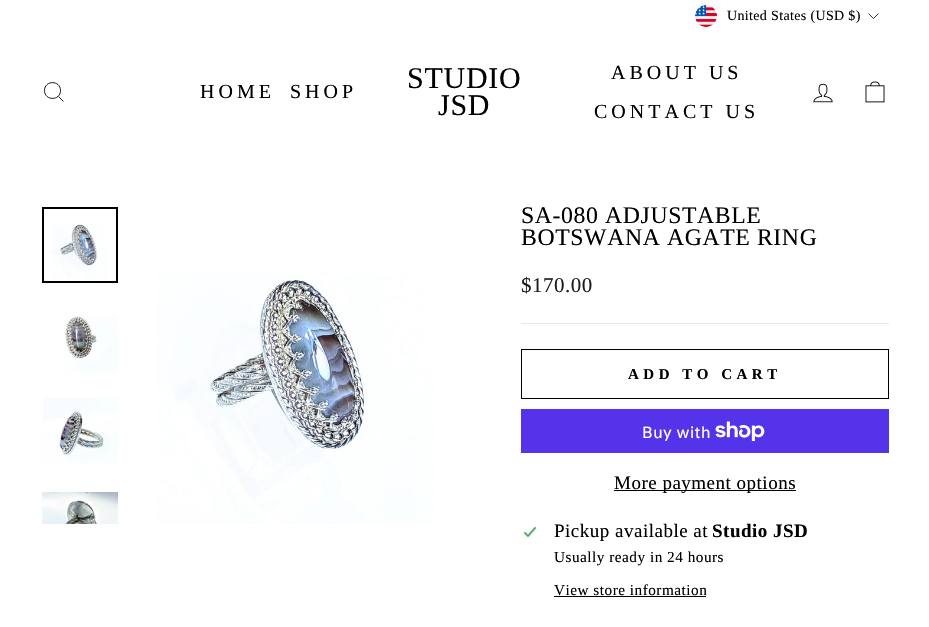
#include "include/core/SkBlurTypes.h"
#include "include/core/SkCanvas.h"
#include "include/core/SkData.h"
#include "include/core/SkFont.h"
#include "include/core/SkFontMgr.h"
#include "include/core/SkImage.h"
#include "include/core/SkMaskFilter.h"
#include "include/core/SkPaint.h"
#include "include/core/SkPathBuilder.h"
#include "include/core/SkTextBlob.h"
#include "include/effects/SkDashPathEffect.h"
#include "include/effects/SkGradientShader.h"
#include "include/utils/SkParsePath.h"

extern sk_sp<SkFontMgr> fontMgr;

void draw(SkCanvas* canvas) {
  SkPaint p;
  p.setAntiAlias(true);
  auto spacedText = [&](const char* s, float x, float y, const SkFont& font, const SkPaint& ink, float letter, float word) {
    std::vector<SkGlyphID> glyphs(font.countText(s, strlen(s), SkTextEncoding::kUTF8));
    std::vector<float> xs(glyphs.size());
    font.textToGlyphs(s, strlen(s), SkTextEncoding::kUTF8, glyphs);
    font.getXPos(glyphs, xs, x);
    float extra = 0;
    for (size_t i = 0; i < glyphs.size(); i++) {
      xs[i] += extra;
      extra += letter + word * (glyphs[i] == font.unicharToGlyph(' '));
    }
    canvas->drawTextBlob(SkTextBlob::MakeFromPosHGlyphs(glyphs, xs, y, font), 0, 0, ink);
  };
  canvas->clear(SK_ColorWHITE);
  canvas->drawImageRect(SkImages::DeferredFromEncodedData(SkData::MakeFromFileName("images/1.png")), SkRect::MakeLTRB(695, 5, 717, 27), SkSamplingOptions());
  p.setStyle(SkPaint::kStroke_Style);
  p.setStrokeWidth(0.8f);
  p.setColor(SK_ColorBLACK);
  canvas->drawPath(SkPathBuilder().moveTo(868.5f, 13.5f).lineTo(873.5f, 18.5f).lineTo(878.5f, 13.5f).detach(), p);
  p.setStrokeWidth(0.9f);
  canvas->drawPath(SkPathBuilder().moveTo(60.5f, 90.5f).cubicTo(60.5f, 101, 44.5f, 101, 44.5f, 90.5f).cubicTo(44.5f, 80, 60.5f, 80, 60.5f, 90.5f).close().moveTo(63.5f, 101.5f).lineTo(58.5f, 96.5f).detach(), p);
  canvas->drawImageRect(SkImages::DeferredFromEncodedData(SkData::MakeFromFileName("images/2.png")), SkRect::MakeLTRB(813, 83, 833, 103), SkSamplingOptions());
  canvas->drawImageRect(SkImages::DeferredFromEncodedData(SkData::MakeFromFileName("images/3.png")), SkRect::MakeLTRB(865, 81, 885, 103), SkSamplingOptions());
  canvas->drawImageRect(SkImages::DeferredFromEncodedData(SkData::MakeFromFileName("images/4.png")), SkRect::MakeLTRB(51, 224, 108, 281), SkSamplingOptions());
  p.setStrokeWidth(2);
  canvas->drawRect(SkRect::MakeLTRB(43, 208, 117, 282), p);
  canvas->drawImageRect(SkImages::DeferredFromEncodedData(SkData::MakeFromFileName("images/5.png")), SkRect::MakeLTRB(65, 314, 118, 373), SkSamplingOptions());
  canvas->drawImageRect(SkImages::DeferredFromEncodedData(SkData::MakeFromFileName("images/6.png")), SkRect::MakeLTRB(42, 397, 118, 463), SkSamplingOptions());
  canvas->drawImageRect(SkImages::DeferredFromEncodedData(SkData::MakeFromFileName("images/7.png")), SkRect::MakeLTRB(42, 492, 118, 524), SkSamplingOptions());
  canvas->drawImageRect(SkImages::DeferredFromEncodedData(SkData::MakeFromFileName("images/8.png")), SkRect::MakeLTRB(157, 271, 434, 524), SkSamplingOptions());
  p.setStyle(SkPaint::kFill_Style);
  p.setColor(SkColorSetRGB(232, 232, 225));
  canvas->drawRect(SkRect::MakeLTRB(521, 323, 889, 324), p);
  p.setStyle(SkPaint::kStroke_Style);
  p.setStrokeWidth(1);
  p.setColor(SK_ColorBLACK);
  canvas->drawRect(SkRect::MakeLTRB(521.5f, 349.5f, 888.5f, 398.5f), p);
  p.setStyle(SkPaint::kFill_Style);
  p.setColor(SkColorSetRGB(84, 51, 235));
  canvas->drawRect(SkRect::MakeLTRB(521, 409, 889, 453), p);
  canvas->drawImageRect(SkImages::DeferredFromEncodedData(SkData::MakeFromFileName("images/9.png")), SkRect::MakeLTRB(715, 421, 765, 441), SkSamplingOptions());
  p.setColor(SK_ColorBLACK);
  canvas->drawRect(SkRect::MakeLTRB(614, 490, 796, 491), p);
  canvas->drawImageRect(SkImages::DeferredFromEncodedData(SkData::MakeFromFileName("images/10.png")), SkRect::MakeLTRB(524, 527, 536, 537), SkSamplingOptions());
  canvas->drawRect(SkRect::MakeLTRB(554, 596, 706, 597), p);
  SkFont font1(fontMgr->matchFamilyStyle("Liberation Serif", SkFontStyle::Normal()), 14);
  font1.setSubpixel(true);
  spacedText("United States (USD $)", 727, 20, font1, p, 0.35f, 0);
  SkFont font2(fontMgr->matchFamilyStyle("Liberation Serif", SkFontStyle::Normal()), 20);
  font2.setSubpixel(true);
  spacedText("HOME", 200, 98, font2, p, 4, 0);
  spacedText("SHOP", 290, 98, font2, p, 4, 0);
  SkFont font3(fontMgr->matchFamilyStyle("Liberation Serif", SkFontStyle::Normal()), 30);
  font3.setSubpixel(true);
  spacedText("STUDIO", 407, 88, font3, p, 0.75f, 0);
  spacedText("JSD", 438, 115, font3, p, 0.75f, 0);
  spacedText("ABOUT US", 611, 79, font2, p, 4, 0);
  spacedText("CONTACT US", 594, 118, font2, p, 4, 0);
  SkFont font4(fontMgr->matchFamilyStyle("Liberation Serif", SkFontStyle::Normal()), 23.75f);
  font4.setSubpixel(true);
  spacedText("SA-080 ADJUSTABLE", 521, 223, font4, p, 0.6f, 0);
  spacedText("BOTSWANA AGATE RING", 521, 245, font4, p, 0.6f, 0);
  SkFont font5(fontMgr->matchFamilyStyle("Liberation Serif", SkFontStyle::Normal()), 21);
  font5.setSubpixel(true);
  p.setColor(SkColorSetRGB(28, 29, 29));
  spacedText("$170.00", 521, 292, font5, p, 0.5f, 0);
  SkFont font6(fontMgr->matchFamilyStyle("Liberation Serif", SkFontStyle::Bold()), 15);
  font6.setSubpixel(true);
  p.setColor(SK_ColorBLACK);
  spacedText("ADD TO CART", 628, 379, font6, p, 4.5f, 0);
  SkFont font7(fontMgr->matchFamilyStyle("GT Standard", SkFontStyle::Normal()), 16);
  font7.setSubpixel(true);
  p.setColor(SK_ColorWHITE);
  spacedText("Buy with", 642, 438, font7, p, 0.5f, 0);
  SkFont font8(fontMgr->matchFamilyStyle("Liberation Serif", SkFontStyle::Normal()), 19);
  font8.setSubpixel(true);
  p.setColor(SK_ColorBLACK);
  spacedText("More payment options", 614, 489, font8, p, 0.5f, 0);
  spacedText("Pickup available at", 554, 537, font8, p, 0.5f, 0);
  SkFont font9(fontMgr->matchFamilyStyle("Liberation Serif", SkFontStyle::Bold()), 19);
  font9.setSubpixel(true);
  spacedText("Studio JSD", 712, 537, font9, p, 0.5f, 0);
  SkFont font10(fontMgr->matchFamilyStyle("Liberation Serif", SkFontStyle::Normal()), 15.25f);
  font10.setSubpixel(true);
  spacedText("Usually ready in 24 hours", 554, 562, font10, p, 0.5f, 0);
  spacedText("View store information", 554, 595, font10, p, 0.5f, 0);
}
